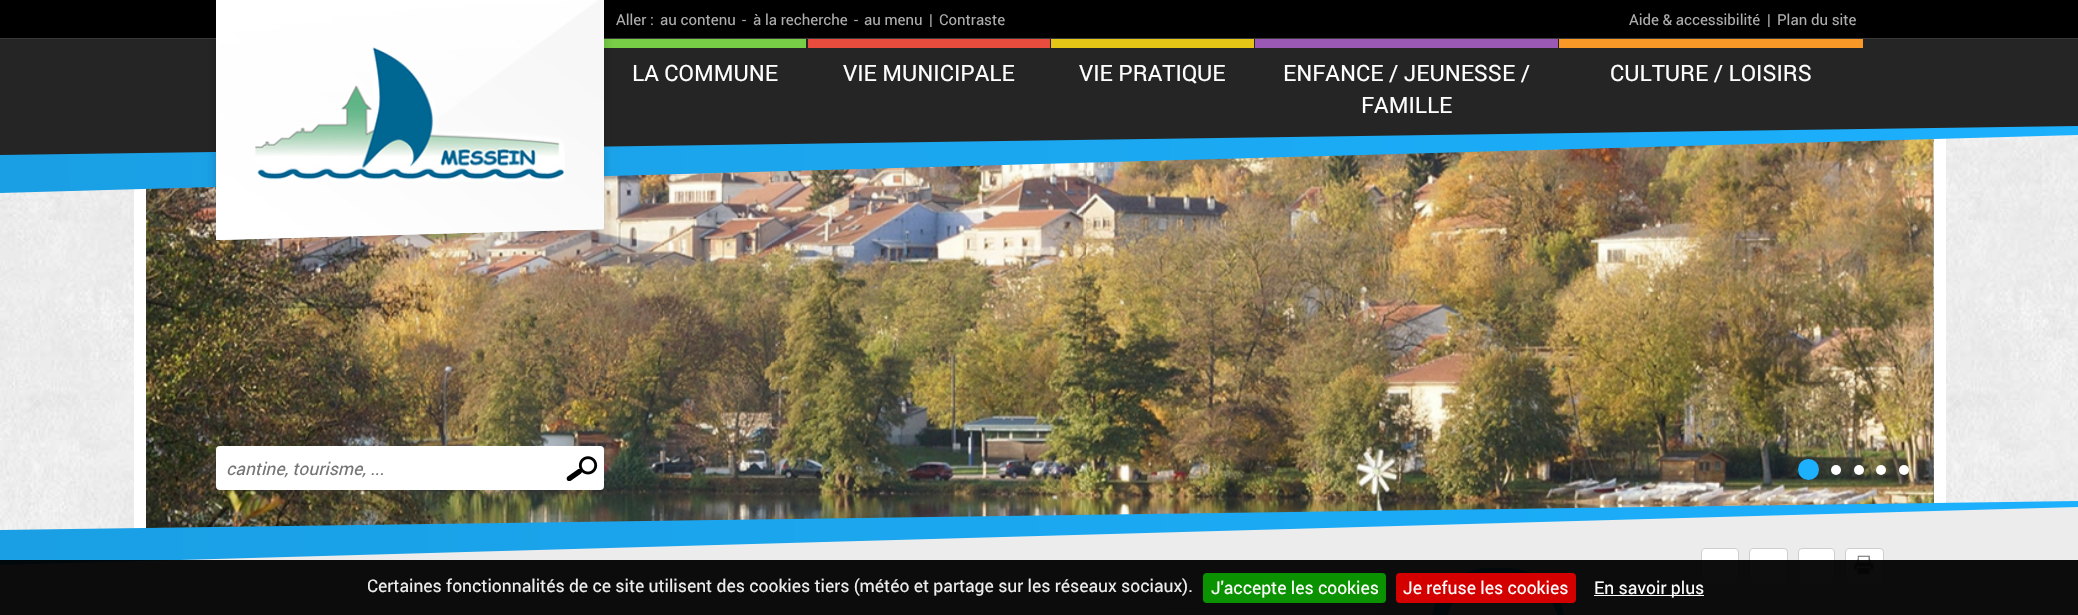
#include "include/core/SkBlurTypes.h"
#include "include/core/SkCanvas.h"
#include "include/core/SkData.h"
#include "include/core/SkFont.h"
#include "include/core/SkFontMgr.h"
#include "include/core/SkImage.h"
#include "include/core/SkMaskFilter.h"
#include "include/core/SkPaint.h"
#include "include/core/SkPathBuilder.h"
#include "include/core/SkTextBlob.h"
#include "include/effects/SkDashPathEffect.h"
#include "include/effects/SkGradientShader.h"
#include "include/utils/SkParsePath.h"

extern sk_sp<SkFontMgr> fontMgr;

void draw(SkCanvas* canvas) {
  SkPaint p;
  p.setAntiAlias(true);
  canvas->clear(SK_ColorWHITE);
  canvas->drawImageRect(SkImages::DeferredFromEncodedData(SkData::MakeFromFileName("images/1.png")), SkRect::MakeLTRB(0, 135, 2078, 530), SkSamplingOptions());
  p.setColor(SK_ColorWHITE);
  canvas->drawRect(SkRect::MakeLTRB(134, 138, 1946, 529), p);
  canvas->drawImageRect(SkImages::DeferredFromEncodedData(SkData::MakeFromFileName("images/4.png")), SkRect::MakeLTRB(146, 139, 1934, 528), SkSamplingOptions());
  canvas->drawImageRect(SkImages::DeferredFromEncodedData(SkData::MakeFromFileName("images/5.png")), SkRect::MakeLTRB(1933, 139, 1934, 504), SkSamplingOptions());
  {
    const SkColor colors[] = {SkColorSetRGB(26, 159, 228), SkColorSetRGB(28, 176, 253)};
    const float stops[] = {0, 1};
    const SkPoint ends[] = {{0, -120}, {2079, -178}};
    p.setShader(SkGradientShader::MakeLinear(ends, colors, stops, 2, SkTileMode::kClamp));
    p.setAlpha(255);
  }
  canvas->drawPath(SkPathBuilder().moveTo(0, -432).lineTo(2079, -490).lineTo(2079, 135).lineTo(0, 193).close().detach(), p);
  p.setShader(nullptr);
  p.setColor(SkColorSetRGB(37, 37, 37));
  canvas->drawPath(SkPathBuilder().moveTo(0, -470).lineTo(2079, -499).lineTo(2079, 126).lineTo(0, 155).close().detach(), p);
  p.setColor(SK_ColorBLACK);
  canvas->drawRect(SkRect::MakeLTRB(0, 0, 2078, 38), p);
  p.setColor(SkColorSetRGB(57, 57, 57));
  canvas->drawRect(SkRect::MakeLTRB(0, 38, 2078, 39), p);
  p.setColor(SkColorSetRGB(120, 205, 70));
  canvas->drawRect(SkRect::MakeLTRB(604, 39, 806, 48), p);
  p.setColor(SkColorSetARGB(51, 0, 0, 0));
  p.setMaskFilter(SkMaskFilter::MakeBlur(kNormal_SkBlurStyle, 5));
  canvas->drawRect(SkRect::MakeLTRB(216, -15, 604, 235), p);
  p.setMaskFilter(nullptr);
  p.setColor(SK_ColorWHITE);
  canvas->drawPath(SkPathBuilder().moveTo(216, -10).lineTo(604, -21).lineTo(604, 229).lineTo(216, 240).close().detach(), p);
  canvas->drawImageRect(SkImages::DeferredFromEncodedData(SkData::MakeFromFileName("images/2.png")), SkRect::MakeLTRB(218, 0, 604, 240), SkSamplingOptions());
  canvas->drawImageRect(SkImages::DeferredFromEncodedData(SkData::MakeFromFileName("images/3.png")), SkRect::MakeLTRB(255, 47, 565, 182), SkSamplingOptions());
  p.setColor(SkColorSetRGB(231, 76, 60));
  canvas->drawRect(SkRect::MakeLTRB(808, 39, 1050, 48), p);
  p.setColor(SkColorSetRGB(229, 197, 21));
  canvas->drawRect(SkRect::MakeLTRB(1051, 39, 1254, 48), p);
  p.setColor(SkColorSetRGB(155, 89, 182));
  canvas->drawRect(SkRect::MakeLTRB(1255, 39, 1558, 48), p);
  p.setColor(SkColorSetRGB(248, 152, 39));
  canvas->drawRect(SkRect::MakeLTRB(1559, 39, 1863, 48), p);
  p.setColor(SkColorSetRGB(28, 176, 253));
  canvas->drawCircle(1808.5f, 469.5f, 10.5f, p);
  p.setColor(SK_ColorWHITE);
  canvas->drawCircle(1836, 470, 5, p);
  canvas->drawCircle(1859, 470, 5, p);
  canvas->drawCircle(1881, 470, 5, p);
  canvas->drawCircle(1904, 470, 5, p);
  canvas->drawRoundRect(SkRect::MakeLTRB(216, 446, 604, 490), 4, 4, p);
  canvas->drawImageRect(SkImages::DeferredFromEncodedData(SkData::MakeFromFileName("images/6.png")), SkRect::MakeLTRB(566, 456, 598, 481), SkSamplingOptions());
  {
    const SkColor colors[] = {SkColorSetRGB(26, 159, 228), SkColorSetRGB(28, 176, 253)};
    const float stops[] = {0, 1};
    const SkPoint ends[] = {{0, 596}, {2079, 567}};
    p.setShader(SkGradientShader::MakeLinear(ends, colors, stops, 2, SkTileMode::kClamp));
    p.setAlpha(255);
  }
  canvas->drawPath(SkPathBuilder().moveTo(0, 530).lineTo(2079, 501).lineTo(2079, 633).lineTo(0, 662).close().detach(), p);
  p.setShader(nullptr);
  p.setColor(SkColorSetRGB(236, 236, 236));
  canvas->drawPath(SkPathBuilder().moveTo(0, 565).lineTo(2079, 507).lineTo(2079, 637).lineTo(0, 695).close().detach(), p);
  p.setColor(SK_ColorWHITE);
  canvas->drawPath(SkPathBuilder().moveTo(196, 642).lineTo(1377, 609).lineTo(1377, 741).lineTo(196, 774).close().detach(), p);
  p.setColor(SkColorSetRGB(28, 176, 253));
  canvas->drawRoundRect(SkRect::MakeLTRB(1431, 568, 1565, 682), 66.5f, 66.5f, p);
  p.setColor(SK_ColorWHITE);
  canvas->drawRoundRect(SkRect::MakeLTRB(1446, 583, 1559, 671), 56, 56, p);
  canvas->drawRoundRect(SkRect::MakeLTRB(1701.5f, 548.5f, 1738.5f, 584.5f), 3.5f, 3.5f, p);
  p.setStyle(SkPaint::kStroke_Style);
  p.setStrokeWidth(1);
  p.setColor(SkColorSetRGB(209, 205, 205));
  canvas->drawRoundRect(SkRect::MakeLTRB(1701.5f, 548.5f, 1738.5f, 584.5f), 3.5f, 3.5f, p);
  p.setStyle(SkPaint::kFill_Style);
  p.setColor(SK_ColorWHITE);
  canvas->drawRoundRect(SkRect::MakeLTRB(1749.5f, 548.5f, 1787.5f, 584.5f), 3.5f, 3.5f, p);
  p.setStyle(SkPaint::kStroke_Style);
  p.setColor(SkColorSetRGB(209, 205, 205));
  canvas->drawRoundRect(SkRect::MakeLTRB(1749.5f, 548.5f, 1787.5f, 584.5f), 3.5f, 3.5f, p);
  p.setStyle(SkPaint::kFill_Style);
  p.setColor(SK_ColorWHITE);
  canvas->drawRoundRect(SkRect::MakeLTRB(1798.5f, 548.5f, 1834.5f, 584.5f), 3.5f, 3.5f, p);
  p.setStyle(SkPaint::kStroke_Style);
  p.setColor(SkColorSetRGB(209, 205, 205));
  canvas->drawRoundRect(SkRect::MakeLTRB(1798.5f, 548.5f, 1834.5f, 584.5f), 3.5f, 3.5f, p);
  p.setStyle(SkPaint::kFill_Style);
  p.setColor(SK_ColorWHITE);
  canvas->drawRoundRect(SkRect::MakeLTRB(1845.5f, 548.5f, 1883.5f, 584.5f), 3.5f, 3.5f, p);
  p.setStyle(SkPaint::kStroke_Style);
  p.setColor(SkColorSetRGB(209, 205, 205));
  canvas->drawRoundRect(SkRect::MakeLTRB(1845.5f, 548.5f, 1883.5f, 584.5f), 3.5f, 3.5f, p);
  canvas->drawImageRect(SkImages::DeferredFromEncodedData(SkData::MakeFromFileName("images/7.png")), SkRect::MakeLTRB(1854, 555, 1874, 575), SkSamplingOptions());
  p.setStyle(SkPaint::kFill_Style);
  p.setColor(SkColorSetARGB(242, 0, 0, 0));
  canvas->drawRect(SkRect::MakeLTRB(0, 560, 2078, 615), p);
  p.setColor(SkColorSetRGB(11, 146, 0));
  canvas->drawRoundRect(SkRect::MakeLTRB(1203, 573, 1386, 603), 4, 4, p);
  p.setColor(SkColorSetRGB(212, 0, 0));
  canvas->drawRoundRect(SkRect::MakeLTRB(1396, 573, 1576, 603), 4, 4, p);
  p.setColor(SK_ColorWHITE);
  canvas->drawRect(SkRect::MakeLTRB(1594, 595, 1704, 596), p);
  SkFont font1(fontMgr->matchFamilyStyle("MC", SkFontStyle::Normal()), 15);
  font1.setSubpixel(true);
  p.setColor(SkColorSetRGB(174, 174, 174));
  canvas->drawString("Aller :", 616, 25, font1, p);
  canvas->drawString("au contenu", 660, 25, font1, p);
  canvas->drawString("-", 742, 25, font1, p);
  canvas->drawString("à la recherche", 753, 25, font1, p);
  canvas->drawString("-", 854, 25, font1, p);
  canvas->drawString("au menu", 864, 25, font1, p);
  canvas->drawString("|", 929, 25, font1, p);
  canvas->drawString("Contraste", 939, 25, font1, p);
  canvas->drawString("Aide & accessibilité", 1629, 25, font1, p);
  canvas->drawString("|", 1767, 25, font1, p);
  canvas->drawString("Plan du site", 1777, 25, font1, p);
  SkFont font2(fontMgr->matchFamilyStyle("MC", SkFontStyle::Normal()), 22.5f);
  font2.setSubpixel(true);
  p.setColor(SK_ColorWHITE);
  canvas->drawString("LA COMMUNE", 632, 81, font2, p);
  canvas->drawString("VIE MUNICIPALE", 843, 81, font2, p);
  canvas->drawString("VIE PRATIQUE", 1079, 81, font2, p);
  canvas->drawString("ENFANCE / JEUNESSE /", 1283, 81, font2, p);
  canvas->drawString("FAMILLE", 1361, 113, font2, p);
  canvas->drawString("CULTURE / LOISIRS", 1610, 81, font2, p);
  SkFont font3(fontMgr->matchFamilyStyle("MC", SkFontStyle::Italic()), 17.5f);
  font3.setSubpixel(true);
  p.setColor(SkColorSetRGB(117, 117, 117));
  canvas->drawString("cantine, tourisme, ...", 226, 475, font3, p);
  SkFont font4(fontMgr->matchFamilyStyle("MC", SkFontStyle::Normal()), 17.5f);
  font4.setSubpixel(true);
  p.setColor(SkColorSetRGB(238, 238, 238));
  canvas->drawString("Certaines fonctionnalités de ce site utilisent des cookies tiers (météo et partage sur les réseaux sociaux).", 367, 592, font4, p);
  p.setColor(SK_ColorWHITE);
  canvas->drawString("J'accepte les cookies", 1211, 594, font4, p);
  canvas->drawString("Je refuse les cookies", 1403, 594, font4, p);
  canvas->drawString("En savoir plus", 1594, 594, font4, p);
}
